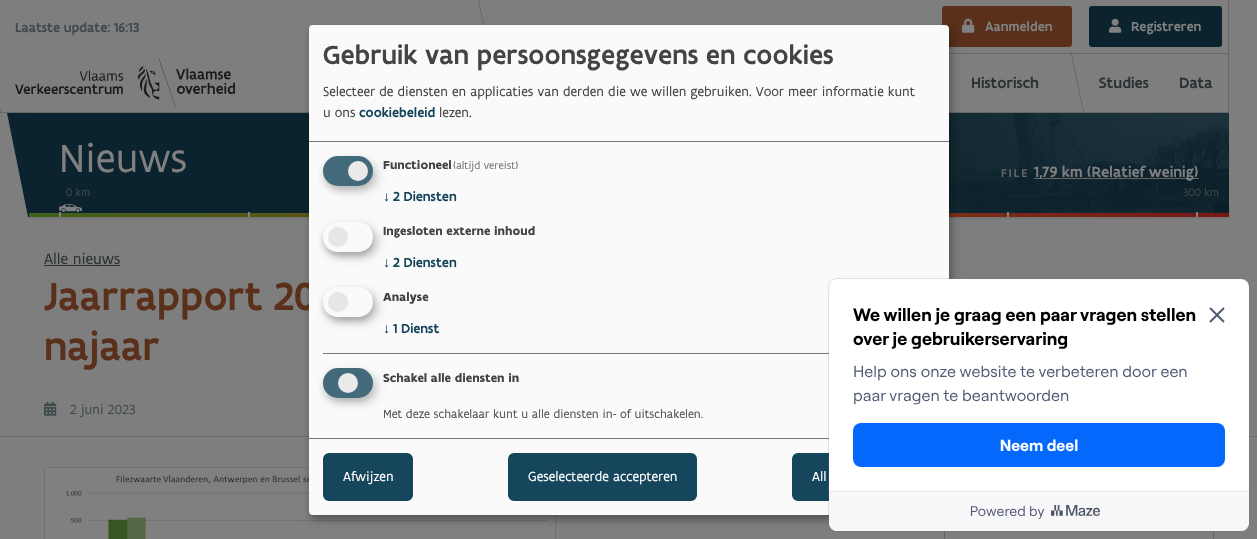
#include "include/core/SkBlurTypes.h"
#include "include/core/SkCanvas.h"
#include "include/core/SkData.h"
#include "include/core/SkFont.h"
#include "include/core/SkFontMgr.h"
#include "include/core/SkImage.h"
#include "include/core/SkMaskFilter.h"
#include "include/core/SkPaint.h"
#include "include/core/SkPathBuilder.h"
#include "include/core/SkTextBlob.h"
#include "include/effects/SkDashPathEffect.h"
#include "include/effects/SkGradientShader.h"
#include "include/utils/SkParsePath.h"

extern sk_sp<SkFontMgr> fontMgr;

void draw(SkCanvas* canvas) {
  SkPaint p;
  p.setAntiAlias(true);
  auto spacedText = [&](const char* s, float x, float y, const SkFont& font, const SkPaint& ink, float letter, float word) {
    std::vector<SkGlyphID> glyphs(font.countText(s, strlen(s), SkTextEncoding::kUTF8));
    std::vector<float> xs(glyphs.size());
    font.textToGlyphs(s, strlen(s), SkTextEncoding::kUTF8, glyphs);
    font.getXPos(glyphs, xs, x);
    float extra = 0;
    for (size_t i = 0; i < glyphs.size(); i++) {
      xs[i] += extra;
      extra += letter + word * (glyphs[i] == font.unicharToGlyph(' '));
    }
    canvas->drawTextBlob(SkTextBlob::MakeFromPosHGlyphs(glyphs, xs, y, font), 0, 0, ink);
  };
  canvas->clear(SkColorSetRGB(126, 126, 126));
  p.setColor(SkColorSetRGB(103, 103, 103));
  canvas->drawRect(SkRect::MakeLTRB(0, 112, 1229, 113), p);
  canvas->drawRect(SkRect::MakeLTRB(1228, 0, 1229, 112), p);
  canvas->drawRect(SkRect::MakeLTRB(949, 53, 1229, 54), p);
  canvas->drawPath(SkPathBuilder().moveTo(478, 0).lineTo(479, 0).lineTo(490, 53).lineTo(489, 53).close().detach(), p);
  p.setColor(SkColorSetRGB(90, 48, 27));
  canvas->drawRoundRect(SkRect::MakeLTRB(942, 6, 1072, 47), 3, 3, p);
  canvas->drawImageRect(SkImages::DeferredFromEncodedData(SkData::MakeFromFileName("images/1.png")), SkRect::MakeLTRB(962, 18, 975, 33), SkSamplingOptions());
  p.setColor(SkColorSetRGB(11, 35, 46));
  canvas->drawRoundRect(SkRect::MakeLTRB(1089, 6, 1222, 47), 3, 3, p);
  canvas->drawImageRect(SkImages::DeferredFromEncodedData(SkData::MakeFromFileName("images/2.png")), SkRect::MakeLTRB(1109, 18, 1122, 33), SkSamplingOptions());
  canvas->drawImageRect(SkImages::DeferredFromEncodedData(SkData::MakeFromFileName("images/3.png")), SkRect::MakeLTRB(15, 59, 235, 107), SkSamplingOptions());
  p.setColor(SkColorSetARGB(28, 34, 35, 36));
  p.setMaskFilter(SkMaskFilter::MakeBlur(kNormal_SkBlurStyle, 1));
  canvas->drawRect(SkRect::MakeLTRB(29, 115, 1229, 219), p);
  p.setMaskFilter(nullptr);
  p.setColor(SkColorSetRGB(103, 103, 103));
  canvas->drawPath(SkPathBuilder().moveTo(1071, 54).lineTo(1072, 54).lineTo(1084, 112).lineTo(1083, 112).close().detach(), p);
  canvas->drawPath(SkPathBuilder().moveTo(-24, 0).lineTo(-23, 0).lineTo(1, 112).lineTo(0, 112).close().detach(), p);
  p.setColor(SkColorSetRGB(11, 35, 46));
  canvas->drawRect(SkRect::MakeLTRB(30, 113, 309, 213), p);
  canvas->save();
  canvas->clipRect(SkRect::MakeLTRB(6, 113, 30, 217));
  canvas->drawPath(SkPathBuilder().moveTo(7, 113).lineTo(31, 113).lineTo(52, 217).lineTo(28, 217).close().detach(), p);
  canvas->restore();
  canvas->drawImageRect(SkImages::DeferredFromEncodedData(SkData::MakeFromFileName("images/4.png")), SkRect::MakeLTRB(949, 113, 1229, 213), SkSamplingOptions());
  p.setColor(SkColorSetRGB(103, 103, 103));
  canvas->drawRect(SkRect::MakeLTRB(1034, 178, 1199, 179), p);
  {
    const SkColor colors[] = {SkColorSetRGB(63, 97, 25), SkColorSetRGB(124, 72, 23), SkColorSetRGB(120, 23, 21)};
    const float stops[] = {0, 0.5f, 1};
    const SkPoint ends[] = {{29, 215}, {1229, 215}};
    p.setShader(SkGradientShader::MakeLinear(ends, colors, stops, 3, SkTileMode::kClamp));
    p.setAlpha(255);
  }
  canvas->drawRect(SkRect::MakeLTRB(29, 213, 1229, 217), p);
  p.setShader(nullptr);
  p.setColor(SkColorSetRGB(128, 128, 128));
  canvas->drawRect(SkRect::MakeLTRB(59, 212, 61, 217), p);
  canvas->drawRect(SkRect::MakeLTRB(1196, 212, 1198, 217), p);
  canvas->drawRect(SkRect::MakeLTRB(248, 212, 250, 217), p);
  canvas->drawRect(SkRect::MakeLTRB(1007, 212, 1009, 217), p);
  canvas->drawImageRect(SkImages::DeferredFromEncodedData(SkData::MakeFromFileName("images/5.png")), SkRect::MakeLTRB(59, 204, 82, 212), SkSamplingOptions());
  p.setColor(SkColorSetRGB(42, 49, 51));
  canvas->drawRect(SkRect::MakeLTRB(44, 265, 120, 266), p);
  canvas->drawImageRect(SkImages::DeferredFromEncodedData(SkData::MakeFromFileName("images/6.png")), SkRect::MakeLTRB(44, 401, 57, 416), SkSamplingOptions());
  p.setColor(SkColorSetRGB(106, 109, 110));
  canvas->drawRect(SkRect::MakeLTRB(0, 436, 1257, 437), p);
  canvas->drawImageRect(SkImages::DeferredFromEncodedData(SkData::MakeFromFileName("images/7.png")), SkRect::MakeLTRB(44, 467, 556, 539), SkSamplingOptions());
  p.setColor(SkColorSetRGB(103, 103, 103));
  canvas->drawPath(SkPathBuilder().moveTo(1214, 467).lineTo(1214, 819).lineTo(1213, 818).lineTo(1213, 470).close().detach(), p);
  canvas->drawPath(SkPathBuilder().moveTo(944, 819).lineTo(944, 467).lineTo(945, 470).lineTo(945, 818).close().detach(), p);
  p.setColor(SkColorSetARGB(48, 0, 0, 0));
  p.setMaskFilter(SkMaskFilter::MakeBlur(kNormal_SkBlurStyle, 5));
  canvas->drawRoundRect(SkRect::MakeLTRB(314, 30, 954, 520), 4, 4, p);
  p.setMaskFilter(nullptr);
  p.setColor(SkColorSetARGB(51, 0, 0, 0));
  p.setMaskFilter(SkMaskFilter::MakeBlur(kNormal_SkBlurStyle, 3));
  canvas->drawRoundRect(SkRect::MakeLTRB(309, 29, 949, 519), 4, 4, p);
  p.setMaskFilter(nullptr);
  SkFont font1(fontMgr->matchFamilyStyle("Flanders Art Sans", SkFontStyle(500, SkFontStyle::kNormal_Width, SkFontStyle::kUpright_Slant)), 14);
  font1.setSubpixel(true);
  p.setColor(SkColorSetRGB(63, 73, 77));
  canvas->drawString("Laatste update: 16:13", 15, 32, font1, p);
  p.setColor(SkColorSetRGB(128, 128, 128));
  canvas->drawString("Aanmelden", 985, 31, font1, p);
  canvas->drawString("Registreren", 1131, 31, font1, p);
  SkFont font2(fontMgr->matchFamilyStyle("Flanders Art Sans", SkFontStyle(500, SkFontStyle::kNormal_Width, SkFontStyle::kUpright_Slant)), 16);
  font2.setSubpixel(true);
  p.setColor(SkColorSetRGB(42, 49, 51));
  canvas->drawString("Historisch", 971, 88, font2, p);
  canvas->drawString("Studies", 1099, 88, font2, p);
  canvas->drawString("Data", 1179, 88, font2, p);
  SkFont font3(fontMgr->matchFamilyStyle("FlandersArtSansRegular", SkFontStyle::Normal()), 42);
  font3.setSubpixel(true);
  p.setColor(SkColorSetRGB(128, 128, 128));
  canvas->drawString("Nieuws", 59, 172, font3, p);
  SkFont font4(fontMgr->matchFamilyStyle("Flanders Art Sans", SkFontStyle(500, SkFontStyle::kNormal_Width, SkFontStyle::kUpright_Slant)), 12);
  font4.setSubpixel(true);
  p.setColor(SkColorSetRGB(103, 103, 103));
  spacedText("FILE", 1001, 177, font4, p, 2, 0);
  p.setColor(SkColorSetRGB(128, 128, 128));
  canvas->drawString("1,79 km (Relatief weinig)", 1034, 177, font2, p);
  SkFont font5(fontMgr->matchFamilyStyle("FlandersArtSansRegular", SkFontStyle::Normal()), 11.5f);
  font5.setSubpixel(true);
  p.setColor(SkColorSetRGB(63, 73, 77));
  canvas->drawString("0 km", 66, 196, font5, p);
  canvas->drawString("300 km", 1183, 196, font5, p);
  SkFont font6(fontMgr->matchFamilyStyle("FlandersArtSansRegular", SkFontStyle::Normal()), 16);
  font6.setSubpixel(true);
  p.setColor(SkColorSetRGB(42, 49, 51));
  canvas->drawString("Alle nieuws", 44, 264, font6, p);
  SkFont font7(fontMgr->matchFamilyStyle("Flanders Art Sans", SkFontStyle(500, SkFontStyle::kNormal_Width, SkFontStyle::kUpright_Slant)), 42);
  font7.setSubpixel(true);
  p.setColor(SkColorSetRGB(90, 48, 27));
  canvas->drawString("Jaarrapport 20", 44, 310, font7, p);
  canvas->drawString("najaar", 44, 360, font7, p);
  SkFont font8(fontMgr->matchFamilyStyle("FlandersArtSansRegular", SkFontStyle::Normal()), 14);
  font8.setSubpixel(true);
  p.setColor(SkColorSetRGB(63, 73, 77));
  canvas->drawString("2 juni 2023", 70, 414, font8, p);
  p.setColor(SkColorSetRGB(250, 250, 250));
  canvas->drawRoundRect(SkRect::MakeLTRB(309, 25, 949, 515), 4, 4, p);
  p.setColor(SkColorSetRGB(119, 119, 119));
  canvas->drawRect(SkRect::MakeLTRB(309, 141, 949, 142), p);
  SkFont font9(fontMgr->matchFamilyStyle("Flanders Art Sans", SkFontStyle(500, SkFontStyle::kNormal_Width, SkFontStyle::kUpright_Slant)), 28);
  font9.setSubpixel(true);
  p.setColor(SkColorSetRGB(68, 68, 68));
  canvas->drawString("Gebruik van persoonsgegevens en cookies", 323, 64, font9, p);
  canvas->drawString("Selecteer de diensten en applicaties van derden die we willen gebruiken. Voor meer informatie kunt", 323, 96, font8, p);
  canvas->drawString("u ons", 323, 117, font8, p);
  p.setColor(SkColorSetRGB(21, 70, 91));
  canvas->drawString("cookiebeleid", 359, 117, font1, p);
  p.setColor(SkColorSetRGB(68, 68, 68));
  canvas->drawString("lezen.", 439, 117, font8, p);
  p.setColor(SkColorSetARGB(38, 0, 0, 0));
  p.setMaskFilter(SkMaskFilter::MakeBlur(kNormal_SkBlurStyle, 5));
  canvas->drawRoundRect(SkRect::MakeLTRB(328, 161, 378, 191), 15, 15, p);
  p.setMaskFilter(nullptr);
  p.setColor(SkColorSetARGB(51, 50, 50, 50));
  p.setMaskFilter(SkMaskFilter::MakeBlur(kNormal_SkBlurStyle, 3));
  canvas->drawRoundRect(SkRect::MakeLTRB(323, 160, 373, 190), 15, 15, p);
  p.setMaskFilter(nullptr);
  p.setColor(SkColorSetRGB(67, 106, 123));
  canvas->drawRoundRect(SkRect::MakeLTRB(323, 156, 373, 186), 15, 15, p);
  p.setColor(SkColorSetRGB(234, 234, 234));
  canvas->drawCircle(358, 171, 10, p);
  SkFont font10(fontMgr->matchFamilyStyle("Flanders Art Sans", SkFontStyle::Bold()), 12.6f);
  font10.setSubpixel(true);
  p.setColor(SkColorSetRGB(68, 68, 68));
  canvas->drawString("Functioneel", 383, 169, font10, p);
  SkFont font11(fontMgr->matchFamilyStyle("FlandersArtSansRegular", SkFontStyle::Normal()), 11.25f);
  font11.setSubpixel(true);
  p.setColor(SkColorSetRGB(119, 119, 119));
  canvas->drawString("(altijd vereist)", 453, 169, font11, p);
  SkFont font12(fontMgr->matchFamilyStyle("Liberation Sans", SkFontStyle::Normal()), 14);
  font12.setSubpixel(true);
  p.setColor(SkColorSetRGB(21, 70, 91));
  canvas->drawString("↓", 383, 201, font12, p);
  canvas->drawString("2 Diensten", 393, 201, font1, p);
  canvas->save();
  canvas->clipPath(SkPathBuilder(SkPathFillType::kEvenOdd).moveTo(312, 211).lineTo(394, 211).lineTo(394, 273).lineTo(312, 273).close().moveTo(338, 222).lineTo(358, 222).cubicTo(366.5f, 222, 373, 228.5f, 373, 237).cubicTo(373, 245.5f, 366.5f, 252, 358, 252).lineTo(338, 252).cubicTo(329.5f, 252, 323, 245.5f, 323, 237).cubicTo(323, 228.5f, 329.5f, 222, 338, 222).close().detach(), true);
  p.setColor(SkColorSetARGB(48, 0, 0, 0));
  p.setMaskFilter(SkMaskFilter::MakeBlur(kNormal_SkBlurStyle, 5));
  canvas->drawRoundRect(SkRect::MakeLTRB(328, 227, 378, 257), 15, 15, p);
  p.setMaskFilter(nullptr);
  canvas->restore();
  canvas->save();
  canvas->clipPath(SkPathBuilder(SkPathFillType::kEvenOdd).moveTo(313, 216).lineTo(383, 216).lineTo(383, 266).lineTo(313, 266).close().moveTo(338, 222).lineTo(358, 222).cubicTo(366.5f, 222, 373, 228.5f, 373, 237).cubicTo(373, 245.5f, 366.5f, 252, 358, 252).lineTo(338, 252).cubicTo(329.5f, 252, 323, 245.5f, 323, 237).cubicTo(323, 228.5f, 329.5f, 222, 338, 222).close().detach(), true);
  p.setColor(SkColorSetARGB(51, 0, 0, 0));
  p.setMaskFilter(SkMaskFilter::MakeBlur(kNormal_SkBlurStyle, 3));
  canvas->drawRoundRect(SkRect::MakeLTRB(323, 226, 373, 256), 15, 15, p);
  p.setMaskFilter(nullptr);
  canvas->restore();
  p.setColor(SkColorSetRGB(230, 230, 230));
  canvas->drawCircle(338, 237, 10, p);
  p.setColor(SkColorSetRGB(68, 68, 68));
  canvas->drawString("Ingesloten externe inhoud", 383, 235, font10, p);
  p.setColor(SkColorSetRGB(21, 70, 91));
  canvas->drawString("↓", 383, 267, font12, p);
  canvas->drawString("2 Diensten", 393, 267, font1, p);
  canvas->save();
  canvas->clipPath(SkPathBuilder(SkPathFillType::kEvenOdd).moveTo(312, 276).lineTo(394, 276).lineTo(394, 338).lineTo(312, 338).close().moveTo(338, 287).lineTo(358, 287).cubicTo(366.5f, 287, 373, 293.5f, 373, 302).cubicTo(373, 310.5f, 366.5f, 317, 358, 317).lineTo(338, 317).cubicTo(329.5f, 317, 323, 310.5f, 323, 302).cubicTo(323, 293.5f, 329.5f, 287, 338, 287).close().detach(), true);
  p.setColor(SkColorSetARGB(48, 0, 0, 0));
  p.setMaskFilter(SkMaskFilter::MakeBlur(kNormal_SkBlurStyle, 5));
  canvas->drawRoundRect(SkRect::MakeLTRB(328, 292, 378, 322), 15, 15, p);
  p.setMaskFilter(nullptr);
  canvas->restore();
  canvas->save();
  canvas->clipPath(SkPathBuilder(SkPathFillType::kEvenOdd).moveTo(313, 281).lineTo(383, 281).lineTo(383, 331).lineTo(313, 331).close().moveTo(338, 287).lineTo(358, 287).cubicTo(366.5f, 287, 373, 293.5f, 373, 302).cubicTo(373, 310.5f, 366.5f, 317, 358, 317).lineTo(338, 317).cubicTo(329.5f, 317, 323, 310.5f, 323, 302).cubicTo(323, 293.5f, 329.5f, 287, 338, 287).close().detach(), true);
  p.setColor(SkColorSetARGB(51, 0, 0, 0));
  p.setMaskFilter(SkMaskFilter::MakeBlur(kNormal_SkBlurStyle, 3));
  canvas->drawRoundRect(SkRect::MakeLTRB(323, 291, 373, 321), 15, 15, p);
  p.setMaskFilter(nullptr);
  canvas->restore();
  p.setColor(SkColorSetRGB(230, 230, 230));
  canvas->drawCircle(338, 302, 10, p);
  p.setColor(SkColorSetRGB(68, 68, 68));
  canvas->drawString("Analyse", 383, 301, font10, p);
  p.setColor(SkColorSetRGB(21, 70, 91));
  canvas->drawString("↓", 383, 333, font12, p);
  canvas->drawString("1 Dienst", 393, 333, font1, p);
  p.setColor(SkColorSetRGB(119, 119, 119));
  canvas->drawRect(SkRect::MakeLTRB(323, 353, 829, 354), p);
  p.setColor(SkColorSetARGB(38, 0, 0, 0));
  p.setMaskFilter(SkMaskFilter::MakeBlur(kNormal_SkBlurStyle, 5));
  canvas->drawRoundRect(SkRect::MakeLTRB(328, 373, 378, 403), 15, 15, p);
  p.setMaskFilter(nullptr);
  p.setColor(SkColorSetARGB(51, 50, 50, 50));
  p.setMaskFilter(SkMaskFilter::MakeBlur(kNormal_SkBlurStyle, 3));
  canvas->drawRoundRect(SkRect::MakeLTRB(323, 372, 373, 402), 15, 15, p);
  p.setMaskFilter(nullptr);
  p.setColor(SkColorSetRGB(67, 106, 123));
  canvas->drawRoundRect(SkRect::MakeLTRB(323, 368, 373, 398), 15, 15, p);
  p.setColor(SkColorSetRGB(234, 234, 234));
  canvas->drawCircle(348, 383, 10, p);
  p.setColor(SkColorSetRGB(68, 68, 68));
  canvas->drawString("Schakel alle diensten in", 383, 382, font10, p);
  SkFont font13(fontMgr->matchFamilyStyle("FlandersArtSansRegular", SkFontStyle::Normal()), 12.6f);
  font13.setSubpixel(true);
  p.setColor(SkColorSetRGB(85, 85, 85));
  canvas->drawString("Met deze schakelaar kunt u alle diensten in- of uitschakelen.", 383, 418, font13, p);
  p.setColor(SkColorSetRGB(119, 119, 119));
  canvas->drawRect(SkRect::MakeLTRB(309, 438, 829, 439), p);
  p.setColor(SkColorSetRGB(21, 70, 91));
  canvas->drawRoundRect(SkRect::MakeLTRB(324.5f, 454.5f, 411.5f, 499.5f), 4.5f, 4.5f, p);
  p.setStyle(SkPaint::kStroke_Style);
  p.setStrokeWidth(3);
  canvas->drawRoundRect(SkRect::MakeLTRB(324.5f, 454.5f, 411.5f, 499.5f), 4.5f, 4.5f, p);
  p.setStyle(SkPaint::kFill_Style);
  p.setColor(SK_ColorWHITE);
  canvas->drawString("Afwijzen", 343, 481, font8, p);
  p.setColor(SkColorSetRGB(21, 70, 91));
  canvas->drawRoundRect(SkRect::MakeLTRB(509.5f, 454.5f, 695.5f, 499.5f), 4.5f, 4.5f, p);
  p.setStyle(SkPaint::kStroke_Style);
  canvas->drawRoundRect(SkRect::MakeLTRB(509.5f, 454.5f, 695.5f, 499.5f), 4.5f, 4.5f, p);
  p.setStyle(SkPaint::kFill_Style);
  p.setColor(SK_ColorWHITE);
  canvas->drawString("Geselecteerde accepteren", 528, 481, font8, p);
  p.setColor(SkColorSetRGB(21, 70, 91));
  canvas->drawRoundRect(SkRect::MakeLTRB(793.5f, 454.5f, 926.5f, 499.5f), 4.5f, 4.5f, p);
  p.setStyle(SkPaint::kStroke_Style);
  canvas->drawRoundRect(SkRect::MakeLTRB(793.5f, 454.5f, 926.5f, 499.5f), 4.5f, 4.5f, p);
  p.setStyle(SkPaint::kFill_Style);
  p.setColor(SK_ColorWHITE);
  canvas->drawString("All", 812, 481, font8, p);
  canvas->drawImageRect(SkImages::DeferredFromEncodedData(SkData::MakeFromFileName("images/8.png")), SkRect::MakeLTRB(827, 278, 1250, 533), SkSamplingOptions());
}
